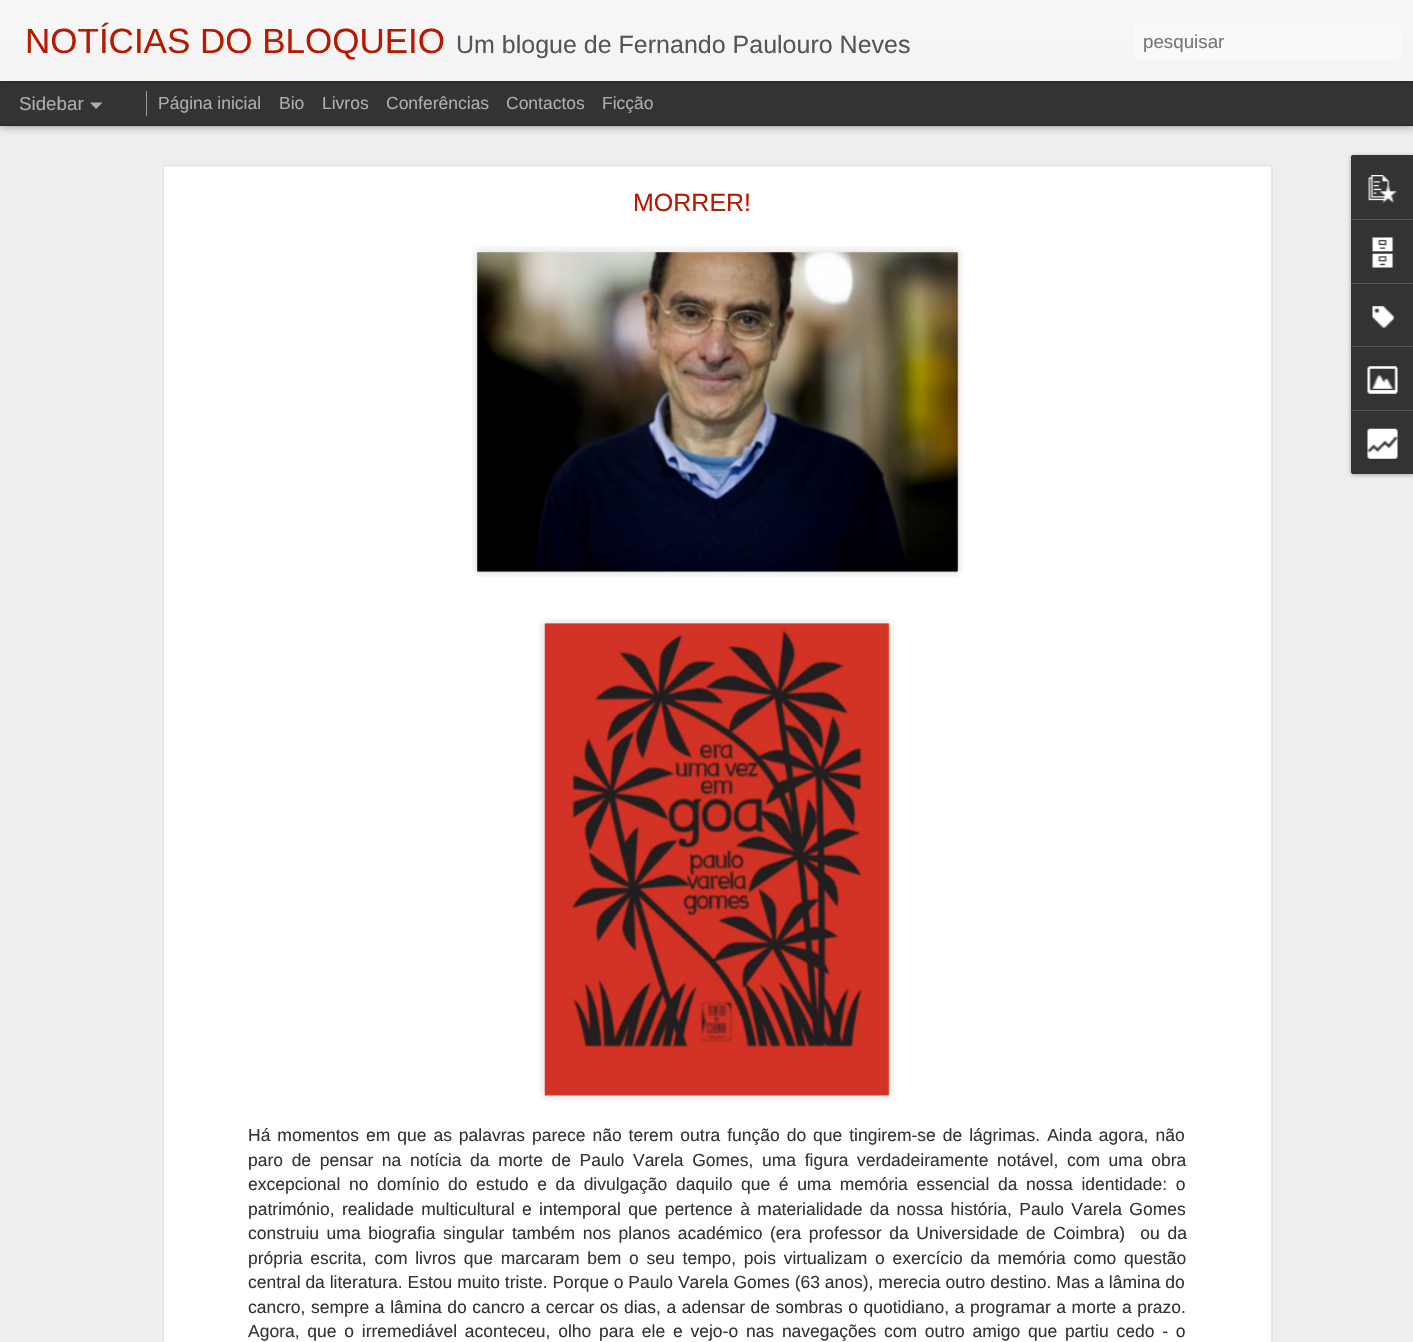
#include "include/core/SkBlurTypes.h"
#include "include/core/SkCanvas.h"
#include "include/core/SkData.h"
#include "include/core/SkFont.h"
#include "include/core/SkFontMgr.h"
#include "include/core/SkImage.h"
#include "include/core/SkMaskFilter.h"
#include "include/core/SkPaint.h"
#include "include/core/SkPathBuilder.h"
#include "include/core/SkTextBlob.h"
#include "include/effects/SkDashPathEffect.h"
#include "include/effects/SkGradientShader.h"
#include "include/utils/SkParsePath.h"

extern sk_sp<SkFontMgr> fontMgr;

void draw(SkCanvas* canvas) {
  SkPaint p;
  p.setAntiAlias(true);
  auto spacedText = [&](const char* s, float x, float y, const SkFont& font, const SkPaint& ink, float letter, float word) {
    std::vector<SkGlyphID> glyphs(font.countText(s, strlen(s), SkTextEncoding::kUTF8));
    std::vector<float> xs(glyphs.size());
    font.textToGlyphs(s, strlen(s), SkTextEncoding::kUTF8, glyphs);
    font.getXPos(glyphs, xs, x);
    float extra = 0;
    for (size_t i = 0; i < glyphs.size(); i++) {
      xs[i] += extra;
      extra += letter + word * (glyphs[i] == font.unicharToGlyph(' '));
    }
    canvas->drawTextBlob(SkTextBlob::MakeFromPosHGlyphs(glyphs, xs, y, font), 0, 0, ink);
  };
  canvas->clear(SkColorSetRGB(51, 51, 51));
  p.setColor(SkColorSetRGB(238, 238, 238));
  canvas->drawRect(SkRect::MakeLTRB(0, 126, 1413, 1342), p);
  p.setColor(SkColorSetARGB(128, 0, 0, 0));
  p.setMaskFilter(SkMaskFilter::MakeBlur(kNormal_SkBlurStyle, 5));
  canvas->drawRect(SkRect::MakeLTRB(0, 81, 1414, 125), p);
  p.setMaskFilter(nullptr);
  p.setColor(SkColorSetRGB(51, 51, 51));
  canvas->drawRect(SkRect::MakeLTRB(0, 81, 1413, 125), p);
  p.setColor(SkColorSetARGB(77, 0, 0, 0));
  p.setMaskFilter(SkMaskFilter::MakeBlur(kNormal_SkBlurStyle, 3));
  canvas->drawRect(SkRect::MakeLTRB(0, 0, 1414, 81), p);
  p.setMaskFilter(nullptr);
  {
    const SkColor colors[] = {SkColorSetRGB(247, 247, 247), SkColorSetRGB(244, 244, 244)};
    const float stops[] = {0, 1};
    const SkPoint ends[] = {{0, 0}, {0, 81}};
    p.setShader(SkGradientShader::MakeLinear(ends, colors, stops, 2, SkTileMode::kClamp));
    p.setAlpha(255);
  }
  canvas->drawRect(SkRect::MakeLTRB(0, 0, 1413, 81), p);
  p.setShader(nullptr);
  p.setColor(SkColorSetRGB(250, 250, 250));
  canvas->drawRoundRect(SkRect::MakeLTRB(1134, 23, 1401, 60), 4, 4, p);
  p.setColor(SkColorSetRGB(173, 173, 173));
  canvas->drawPath(SkPathBuilder().moveTo(90, 102.5f).lineTo(102.5f, 102.5f).lineTo(96, 109).close().detach(), p);
  p.setColor(SkColorSetRGB(153, 153, 153));
  canvas->drawRect(SkRect::MakeLTRB(146, 91, 147, 116), p);
  p.setColor(SK_ColorWHITE);
  canvas->drawRect(SkRect::MakeLTRB(161, 164, 1274, 1342), p);
  canvas->drawImageRect(SkImages::DeferredFromEncodedData(SkData::MakeFromFileName("images/1.png")), SkRect::MakeLTRB(161, 164, 1274, 1342), SkSamplingOptions());
  canvas->drawImageRect(SkImages::DeferredFromEncodedData(SkData::MakeFromFileName("images/2.png")), SkRect::MakeLTRB(472, 246, 964, 577), SkSamplingOptions());
  canvas->drawImageRect(SkImages::DeferredFromEncodedData(SkData::MakeFromFileName("images/3.png")), SkRect::MakeLTRB(477, 252, 958, 573), SkSamplingOptions());
  canvas->drawImageRect(SkImages::DeferredFromEncodedData(SkData::MakeFromFileName("images/4.png")), SkRect::MakeLTRB(539, 618, 895, 1101), SkSamplingOptions());
  canvas->drawImageRect(SkImages::DeferredFromEncodedData(SkData::MakeFromFileName("images/5.png")), SkRect::MakeLTRB(544, 623, 890, 1096), SkSamplingOptions());
  p.setColor(SkColorSetARGB(77, 0, 0, 0));
  p.setMaskFilter(SkMaskFilter::MakeBlur(kNormal_SkBlurStyle, 2));
  canvas->drawRoundRect(SkRect::MakeLTRB(1351, 156, 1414, 475), 2.5f, 2.5f, p);
  p.setMaskFilter(nullptr);
  p.setColor(SkColorSetRGB(51, 51, 51));
  canvas->drawPath(SkPathBuilder().moveTo(1353.5f, 155).lineTo(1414, 155).lineTo(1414, 474).lineTo(1353.5f, 474).cubicTo(1352, 474, 1351, 473, 1351, 471.5f).lineTo(1351, 157.5f).cubicTo(1351, 156, 1352, 155, 1353.5f, 155).close().detach(), p);
  canvas->drawPath(SkPathBuilder().moveTo(1353.5f, 155).lineTo(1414, 155).lineTo(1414, 219).lineTo(1351, 219).lineTo(1351, 157.5f).cubicTo(1351, 156, 1352, 155, 1353.5f, 155).close().detach(), p);
  canvas->drawImageRect(SkImages::DeferredFromEncodedData(SkData::MakeFromFileName("images/6.png")), SkRect::MakeLTRB(1368, 175, 1397, 203), SkSamplingOptions());
  p.setColor(SkColorSetRGB(88, 88, 88));
  canvas->drawRect(SkRect::MakeLTRB(1351, 219, 1413, 220), p);
  canvas->drawImageRect(SkImages::DeferredFromEncodedData(SkData::MakeFromFileName("images/7.png")), SkRect::MakeLTRB(1371, 237, 1394, 268), SkSamplingOptions());
  canvas->drawRect(SkRect::MakeLTRB(1351, 283, 1413, 284), p);
  canvas->drawImageRect(SkImages::DeferredFromEncodedData(SkData::MakeFromFileName("images/8.png")), SkRect::MakeLTRB(1372, 306, 1395, 328), SkSamplingOptions());
  canvas->drawRect(SkRect::MakeLTRB(1351, 346, 1413, 347), p);
  canvas->drawImageRect(SkImages::DeferredFromEncodedData(SkData::MakeFromFileName("images/9.png")), SkRect::MakeLTRB(1367, 366, 1398, 394), SkSamplingOptions());
  p.setColor(SkColorSetRGB(51, 51, 51));
  canvas->drawPath(SkPathBuilder().moveTo(1351, 410).lineTo(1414, 410).lineTo(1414, 474).lineTo(1353.5f, 474).cubicTo(1352, 474, 1351, 473, 1351, 471.5f).close().detach(), p);
  p.setColor(SkColorSetRGB(88, 88, 88));
  canvas->drawRect(SkRect::MakeLTRB(1351, 410, 1413, 411), p);
  canvas->drawImageRect(SkImages::DeferredFromEncodedData(SkData::MakeFromFileName("images/10.png")), SkRect::MakeLTRB(1367, 428, 1398, 459), SkSamplingOptions());
  SkFont font1(fontMgr->matchFamilyStyle("Liberation Sans", SkFontStyle::Normal()), 35);
  font1.setSubpixel(true);
  p.setColor(SkColorSetRGB(184, 26, 0));
  canvas->drawString("NOTÍCIAS DO BLOQUEIO", 25, 53, font1, p);
  SkFont font2(fontMgr->matchFamilyStyle("Liberation Sans", SkFontStyle::Normal()), 25);
  font2.setSubpixel(true);
  p.setColor(SkColorSetRGB(85, 85, 85));
  canvas->drawString("Um blogue de Fernando Paulouro Neves", 456, 53, font2, p);
  SkFont font3(fontMgr->matchFamilyStyle("Liberation Sans", SkFontStyle::Normal()), 18.75f);
  font3.setSubpixel(true);
  p.setColor(SkColorSetRGB(117, 117, 117));
  canvas->drawString("pesquisar", 1143, 48, font3, p);
  p.setColor(SkColorSetRGB(173, 173, 173));
  canvas->drawString("Sidebar", 19, 110, font3, p);
  SkFont font4(fontMgr->matchFamilyStyle("Liberation Sans", SkFontStyle::Normal()), 17.5f);
  font4.setSubpixel(true);
  canvas->drawString("Página inicial", 158, 109, font4, p);
  canvas->drawString("Bio", 279, 109, font4, p);
  canvas->drawString("Livros", 322, 109, font4, p);
  canvas->drawString("Conferências", 386, 109, font4, p);
  canvas->drawString("Contactos", 506, 109, font4, p);
  canvas->drawString("Ficção", 602, 109, font4, p);
  p.setColor(SkColorSetRGB(184, 26, 0));
  canvas->drawString("MORRER!", 633, 211, font2, p);
  p.setColor(SkColorSetRGB(51, 51, 51));
  spacedText("Há momentos em que as palavras parece não terem outra função do que tingirem-se de lágrimas. Ainda agora, não", 248, 1141, font4, p, 0, 2.1f);
  spacedText("paro de pensar na notícia da morte de Paulo Varela Gomes, uma figura verdadeiramente notável, com uma obra", 248, 1166, font4, p, 0, 3.75f);
  spacedText("excepcional no domínio do estudo e da divulgação daquilo que é uma memória essencial da nossa identidade: o", 248, 1190, font4, p, 0, 3.75f);
  spacedText("património, realidade multicultural e intemporal que pertence à materialidade da nossa história, Paulo Varela Gomes", 248, 1215, font4, p, 0, 2.5f);
  spacedText("construiu uma biografia singular também nos planos académico (era professor da Universidade de Coimbra)  ou da", 248, 1239, font4, p, 0, 2.75f);
  spacedText("própria escrita, com livros que marcaram bem o seu tempo, pois virtualizam o exercício da memória como questão", 248, 1264, font4, p, 0, 2.9f);
  canvas->drawString("central da literatura. Estou muito triste. Porque o Paulo Varela Gomes (63 anos), merecia outro destino. Mas a lâmina do", 248, 1288, font4, p);
  spacedText("cancro, sempre a lâmina do cancro a cercar os dias, a adensar de sombras o quotidiano, a programar a morte a prazo.", 248, 1313, font4, p, 0, 0.7f);
  spacedText("Agora, que o irremediável aconteceu, olho para ele e vejo-o nas navegações com outro amigo que partiu cedo - o", 248, 1337, font4, p, 0, 2.9f);
}
